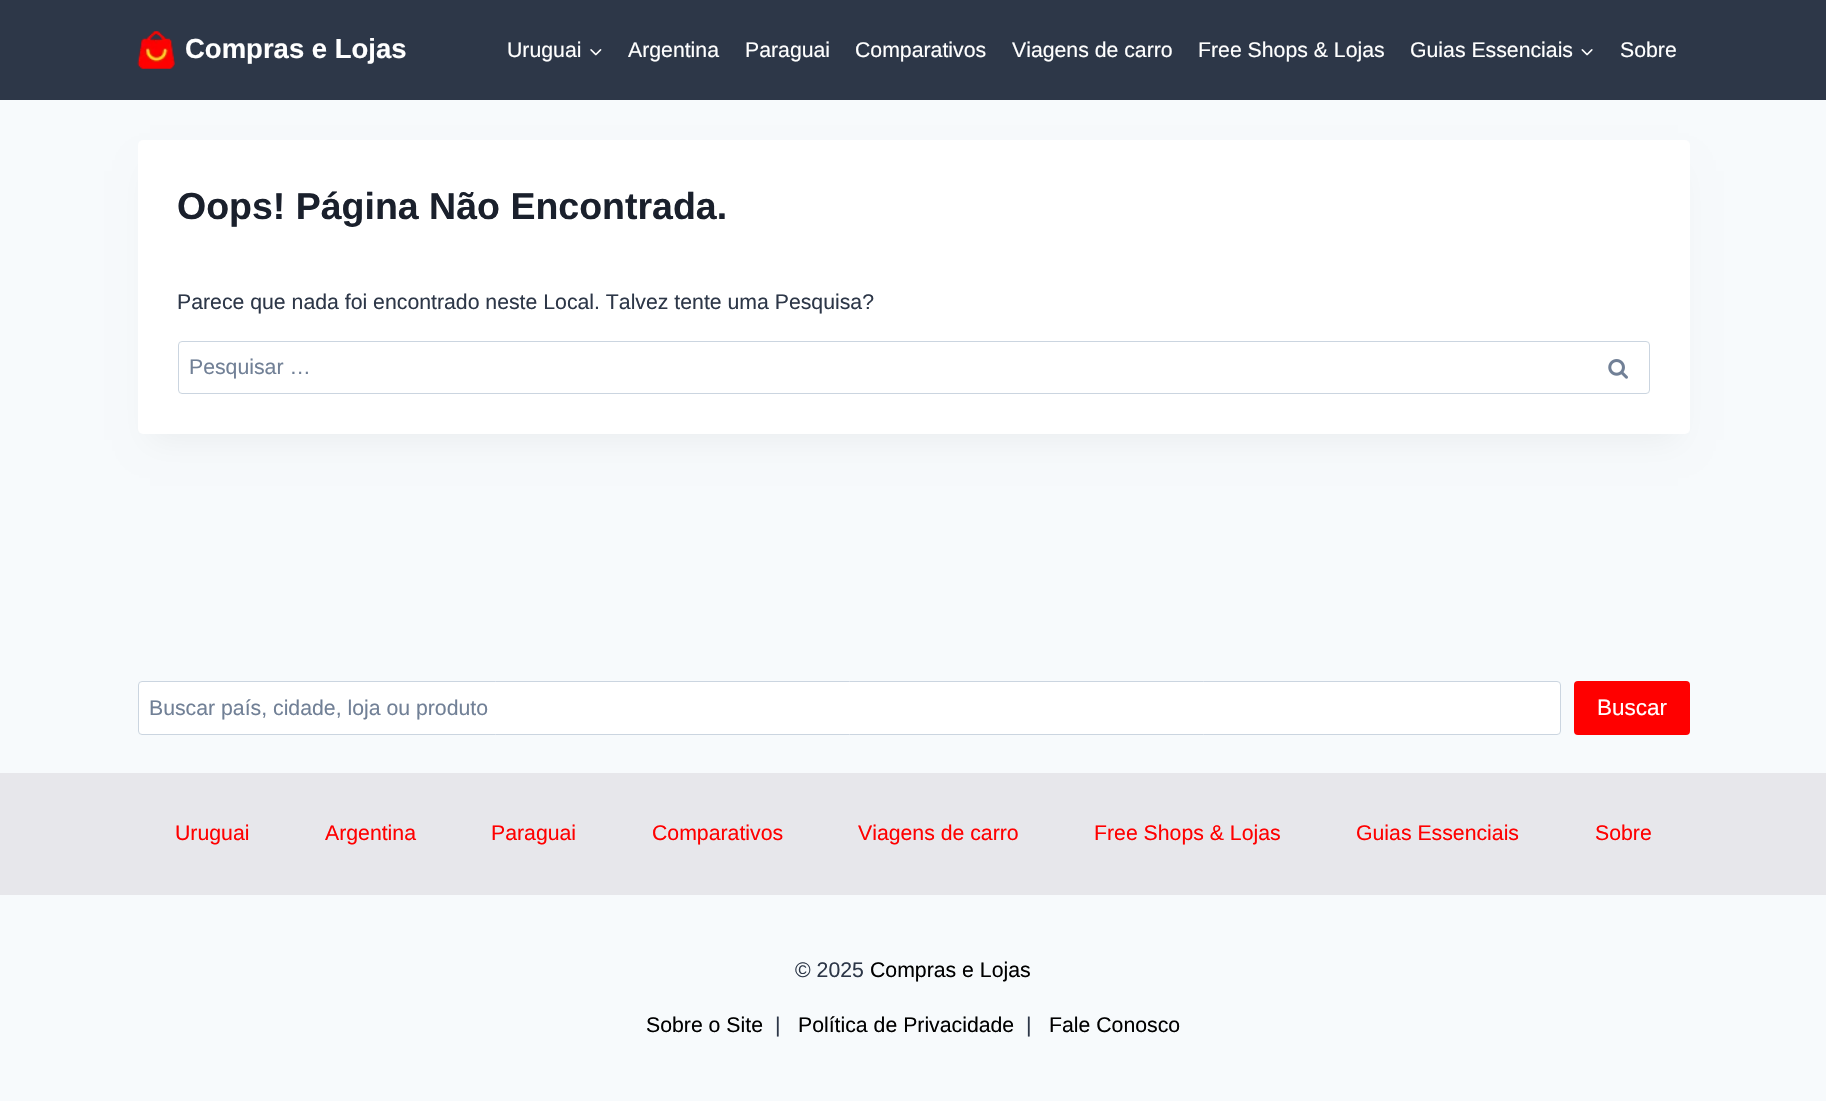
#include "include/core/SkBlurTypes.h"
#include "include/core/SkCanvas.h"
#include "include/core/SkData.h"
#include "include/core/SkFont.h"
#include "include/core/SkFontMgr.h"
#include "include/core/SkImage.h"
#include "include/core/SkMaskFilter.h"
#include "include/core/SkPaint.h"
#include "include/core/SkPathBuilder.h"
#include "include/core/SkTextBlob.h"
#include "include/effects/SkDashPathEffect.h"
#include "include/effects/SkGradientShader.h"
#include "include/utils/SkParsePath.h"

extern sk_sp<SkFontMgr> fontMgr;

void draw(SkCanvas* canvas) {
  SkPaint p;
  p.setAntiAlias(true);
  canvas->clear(SkColorSetRGB(247, 250, 252));
  p.setColor(SkColorSetRGB(45, 55, 72));
  canvas->drawRect(SkRect::MakeLTRB(0, 0, 1826, 100), p);
  canvas->drawImageRect(SkImages::DeferredFromEncodedData(SkData::MakeFromFileName("images/1.png")), SkRect::MakeLTRB(137, 31, 175, 69), SkSamplingOptions());
  canvas->drawImageRect(SkImages::DeferredFromEncodedData(SkData::MakeFromFileName("images/2.png")), SkRect::MakeLTRB(590, 49, 602, 56), SkSamplingOptions());
  canvas->drawImageRect(SkImages::DeferredFromEncodedData(SkData::MakeFromFileName("images/3.png")), SkRect::MakeLTRB(1581, 49, 1593, 56), SkSamplingOptions());
  p.setColor(SkColorSetARGB(13, 0, 0, 0));
  p.setMaskFilter(SkMaskFilter::MakeBlur(kNormal_SkBlurStyle, 15.5f));
  canvas->drawRect(SkRect::MakeLTRB(150, 171, 1678, 440), p);
  p.setMaskFilter(nullptr);
  p.setColor(SK_ColorWHITE);
  canvas->drawRoundRect(SkRect::MakeLTRB(138, 140, 1690, 434), 5, 5, p);
  p.setStyle(SkPaint::kStroke_Style);
  p.setStrokeWidth(1);
  p.setColor(SkColorSetRGB(203, 213, 224));
  canvas->drawRoundRect(SkRect::MakeLTRB(178.5f, 341.5f, 1649.5f, 393.5f), 3.5f, 3.5f, p);
  canvas->drawImageRect(SkImages::DeferredFromEncodedData(SkData::MakeFromFileName("images/4.png")), SkRect::MakeLTRB(1608, 359, 1628, 379), SkSamplingOptions());
  p.setStyle(SkPaint::kFill_Style);
  p.setColor(SK_ColorWHITE);
  canvas->drawRoundRect(SkRect::MakeLTRB(138.5f, 681.5f, 1560.5f, 734.5f), 3.5f, 3.5f, p);
  p.setStyle(SkPaint::kStroke_Style);
  p.setColor(SkColorSetRGB(203, 213, 224));
  canvas->drawRoundRect(SkRect::MakeLTRB(138.5f, 681.5f, 1560.5f, 734.5f), 3.5f, 3.5f, p);
  p.setStyle(SkPaint::kFill_Style);
  p.setColor(SkColorSetRGB(255, 0, 0));
  canvas->drawRoundRect(SkRect::MakeLTRB(1574, 681, 1690, 735), 4, 4, p);
  p.setColor(SkColorSetRGB(231, 231, 235));
  canvas->drawRect(SkRect::MakeLTRB(0, 773, 1826, 895), p);
  SkFont font1(fontMgr->matchFamilyStyle("Liberation Sans", SkFontStyle::Bold()), 27.5f);
  font1.setSubpixel(true);
  p.setColor(SK_ColorWHITE);
  canvas->drawString("Compras e Lojas", 185, 58, font1, p);
  SkFont font2(fontMgr->matchFamilyStyle("Liberation Sans", SkFontStyle::Normal()), 21.25f);
  font2.setSubpixel(true);
  canvas->drawString("Uruguai", 507, 57, font2, p);
  canvas->drawString("Argentina", 628, 57, font2, p);
  canvas->drawString("Paraguai", 745, 57, font2, p);
  canvas->drawString("Comparativos", 855, 57, font2, p);
  canvas->drawString("Viagens de carro", 1012, 57, font2, p);
  canvas->drawString("Free Shops & Lojas", 1198, 57, font2, p);
  canvas->drawString("Guias Essenciais", 1410, 57, font2, p);
  canvas->drawString("Sobre", 1620, 57, font2, p);
  SkFont font3(fontMgr->matchFamilyStyle("Liberation Sans", SkFontStyle::Bold()), 37.5f);
  font3.setSubpixel(true);
  p.setColor(SkColorSetRGB(26, 32, 44));
  canvas->drawString("Oops! Página Não Encontrada.", 177, 219, font3, p);
  p.setColor(SkColorSetRGB(45, 55, 72));
  canvas->drawString("Parece que nada foi encontrado neste Local. Talvez tente uma Pesquisa?", 177, 309, font2, p);
  p.setColor(SkColorSetRGB(113, 128, 150));
  canvas->drawString("Pesquisar …", 189, 374, font2, p);
  canvas->drawString("Buscar país, cidade, loja ou produto", 149, 715, font2, p);
  SkFont font4(fontMgr->matchFamilyStyle("Liberation Sans", SkFontStyle::Normal()), 22.5f);
  font4.setSubpixel(true);
  p.setColor(SK_ColorWHITE);
  canvas->drawString("Buscar", 1597, 715, font4, p);
  p.setColor(SkColorSetRGB(255, 0, 0));
  canvas->drawString("Uruguai", 175, 840, font2, p);
  canvas->drawString("Argentina", 325, 840, font2, p);
  canvas->drawString("Paraguai", 491, 840, font2, p);
  canvas->drawString("Comparativos", 652, 840, font2, p);
  canvas->drawString("Viagens de carro", 858, 840, font2, p);
  canvas->drawString("Free Shops & Lojas", 1094, 840, font2, p);
  canvas->drawString("Guias Essenciais", 1356, 840, font2, p);
  canvas->drawString("Sobre", 1595, 840, font2, p);
  p.setColor(SkColorSetRGB(45, 55, 72));
  canvas->drawString("© 2025", 795, 977, font2, p);
  p.setColor(SK_ColorBLACK);
  canvas->drawString("Compras e Lojas", 870, 977, font2, p);
  canvas->drawString("Sobre o Site", 646, 1032, font2, p);
  p.setColor(SkColorSetRGB(45, 55, 72));
  canvas->drawString("|", 775, 1032, font2, p);
  p.setColor(SK_ColorBLACK);
  canvas->drawString("Política de Privacidade", 798, 1032, font2, p);
  p.setColor(SkColorSetRGB(45, 55, 72));
  canvas->drawString("|", 1026, 1032, font2, p);
  p.setColor(SK_ColorBLACK);
  canvas->drawString("Fale Conosco", 1049, 1032, font2, p);
}
